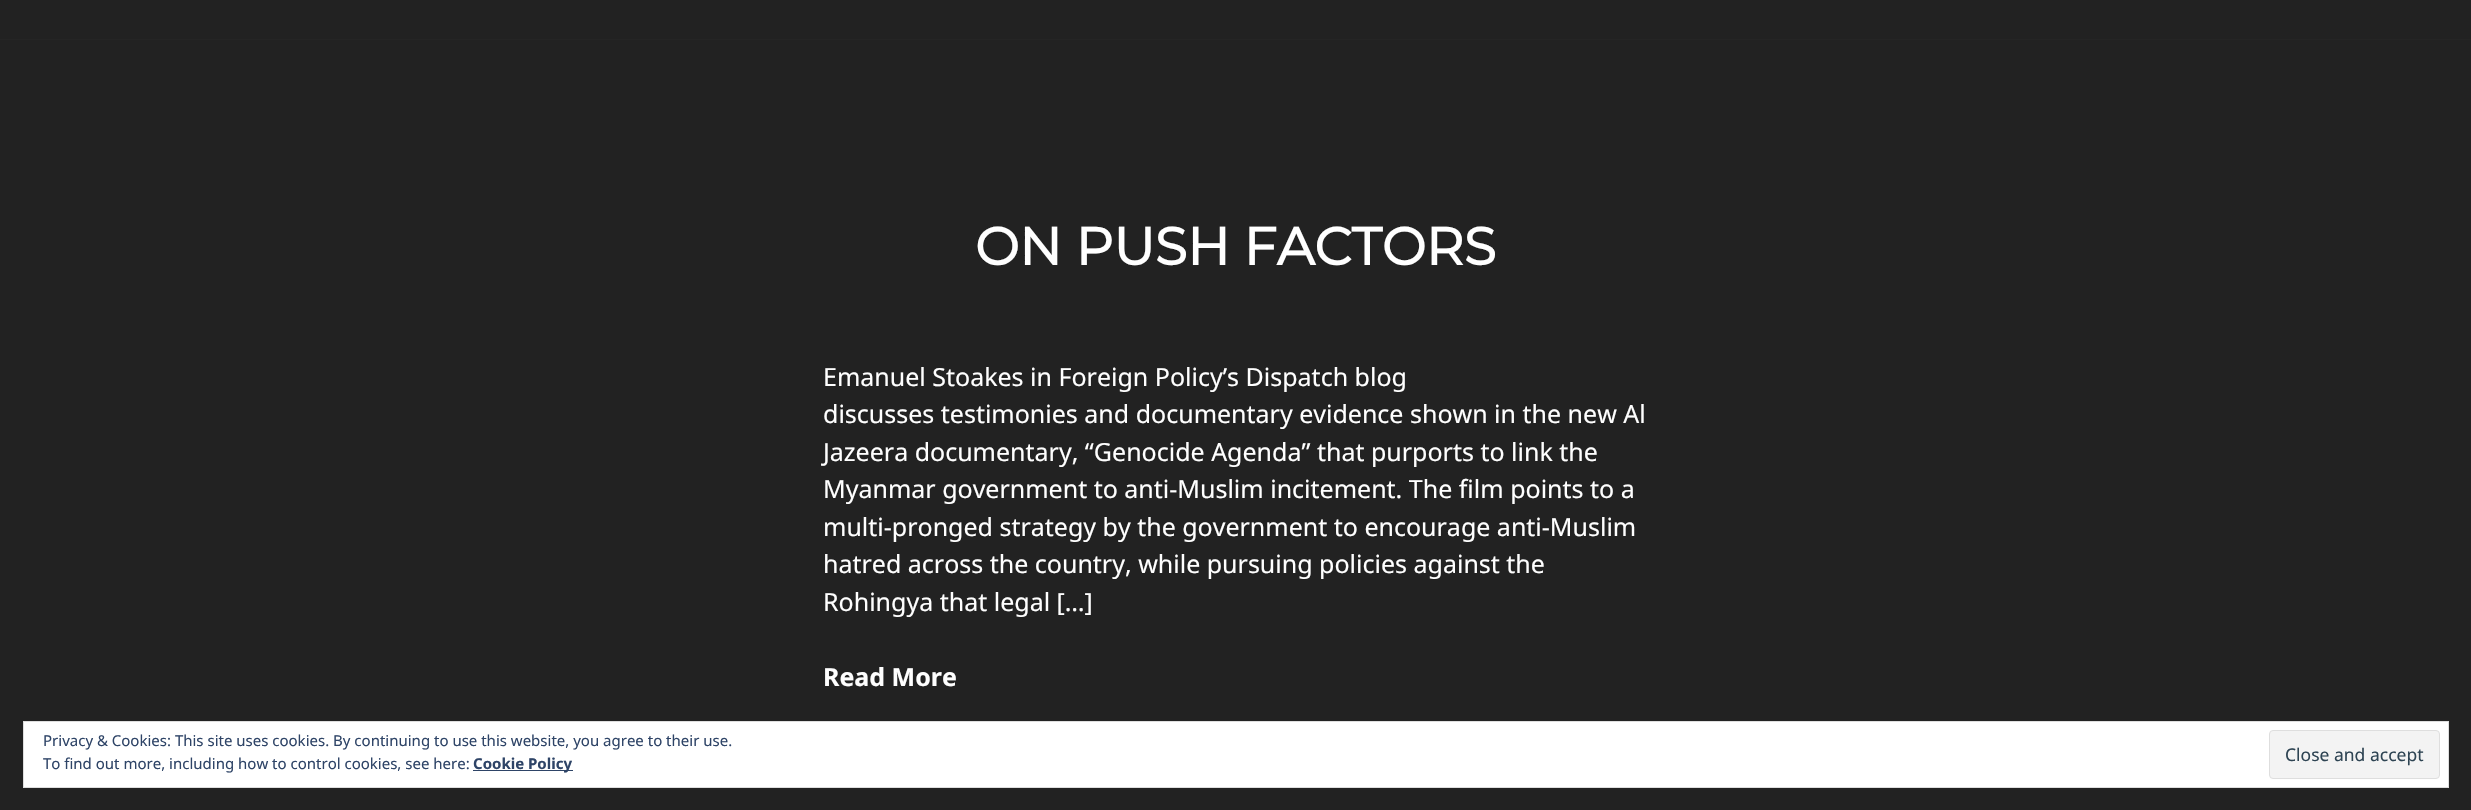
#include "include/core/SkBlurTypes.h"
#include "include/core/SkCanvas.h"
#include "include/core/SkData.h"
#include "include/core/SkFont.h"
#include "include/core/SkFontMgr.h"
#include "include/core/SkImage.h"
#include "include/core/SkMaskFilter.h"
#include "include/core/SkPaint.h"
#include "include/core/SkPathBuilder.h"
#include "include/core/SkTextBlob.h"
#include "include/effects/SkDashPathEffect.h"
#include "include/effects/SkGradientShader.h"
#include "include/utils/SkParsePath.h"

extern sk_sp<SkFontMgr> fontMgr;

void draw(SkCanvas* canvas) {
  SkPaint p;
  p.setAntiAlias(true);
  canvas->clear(SkColorSetRGB(34, 34, 34));
  p.setColor(SkColorSetRGB(37, 37, 37));
  canvas->drawRect(SkRect::MakeLTRB(0, 39, 2471, 40), p);
  p.setColor(SK_ColorWHITE);
  canvas->drawRect(SkRect::MakeLTRB(23.5f, 721.5f, 2448.5f, 787.5f), p);
  p.setStyle(SkPaint::kStroke_Style);
  p.setStrokeWidth(1);
  p.setColor(SkColorSetRGB(222, 222, 222));
  canvas->drawRect(SkRect::MakeLTRB(23.5f, 721.5f, 2448.5f, 787.5f), p);
  p.setStyle(SkPaint::kFill_Style);
  p.setColor(SkColorSetRGB(46, 68, 103));
  canvas->drawRect(SkRect::MakeLTRB(473, 770, 573, 771), p);
  p.setColor(SkColorSetRGB(243, 243, 243));
  canvas->drawRoundRect(SkRect::MakeLTRB(2269.5f, 730.5f, 2439.5f, 778.5f), 3.5f, 3.5f, p);
  p.setStyle(SkPaint::kStroke_Style);
  p.setColor(SkColorSetRGB(222, 222, 222));
  canvas->drawRoundRect(SkRect::MakeLTRB(2269.5f, 730.5f, 2439.5f, 778.5f), 3.5f, 3.5f, p);
  SkFont font1(fontMgr->matchFamilyStyle("Montserrat", SkFontStyle::Bold()), 52.5f);
  font1.setSubpixel(true);
  p.setStyle(SkPaint::kFill_Style);
  p.setColor(SK_ColorWHITE);
  canvas->drawString("ON PUSH FACTORS", 975, 265, font1, p);
  SkFont font2(fontMgr->matchFamilyStyle("Noto Sans", SkFontStyle::Normal()), 25);
  font2.setSubpixel(true);
  canvas->drawString("Emanuel Stoakes in Foreign Policy’s Dispatch blog", 823, 386, font2, p);
  canvas->drawString("discusses testimonies and documentary evidence shown in the new Al", 823, 423, font2, p);
  canvas->drawString("Jazeera documentary, “Genocide Agenda” that purports to link the", 823, 461, font2, p);
  canvas->drawString("Myanmar government to anti-Muslim incitement. The film points to a", 823, 498, font2, p);
  canvas->drawString("multi-pronged strategy by the government to encourage anti-Muslim", 823, 536, font2, p);
  canvas->drawString("hatred across the country, while pursuing policies against the", 823, 573, font2, p);
  canvas->drawString("Rohingya that legal […]", 823, 611, font2, p);
  SkFont font3(fontMgr->matchFamilyStyle("Noto Sans", SkFontStyle::Bold()), 25);
  font3.setSubpixel(true);
  canvas->drawString("Read More", 823, 686, font3, p);
  SkFont font4(fontMgr->matchFamilyStyle("Noto Sans", SkFontStyle::Normal()), 15);
  font4.setSubpixel(true);
  p.setColor(SkColorSetRGB(46, 68, 103));
  canvas->drawString("Privacy & Cookies: This site uses cookies. By continuing to use this website, you agree to their use.", 43, 746, font4, p);
  canvas->drawString("To find out more, including how to control cookies, see here:", 43, 769, font4, p);
  SkFont font5(fontMgr->matchFamilyStyle("Noto Sans", SkFontStyle::Bold()), 15);
  font5.setSubpixel(true);
  canvas->drawString("Cookie Policy", 473, 769, font5, p);
  SkFont font6(fontMgr->matchFamilyStyle("Noto Sans", SkFontStyle::Normal()), 17.5f);
  font6.setSubpixel(true);
  p.setColor(SkColorSetRGB(46, 68, 83));
  canvas->drawString("Close and accept", 2285, 761, font6, p);
}
